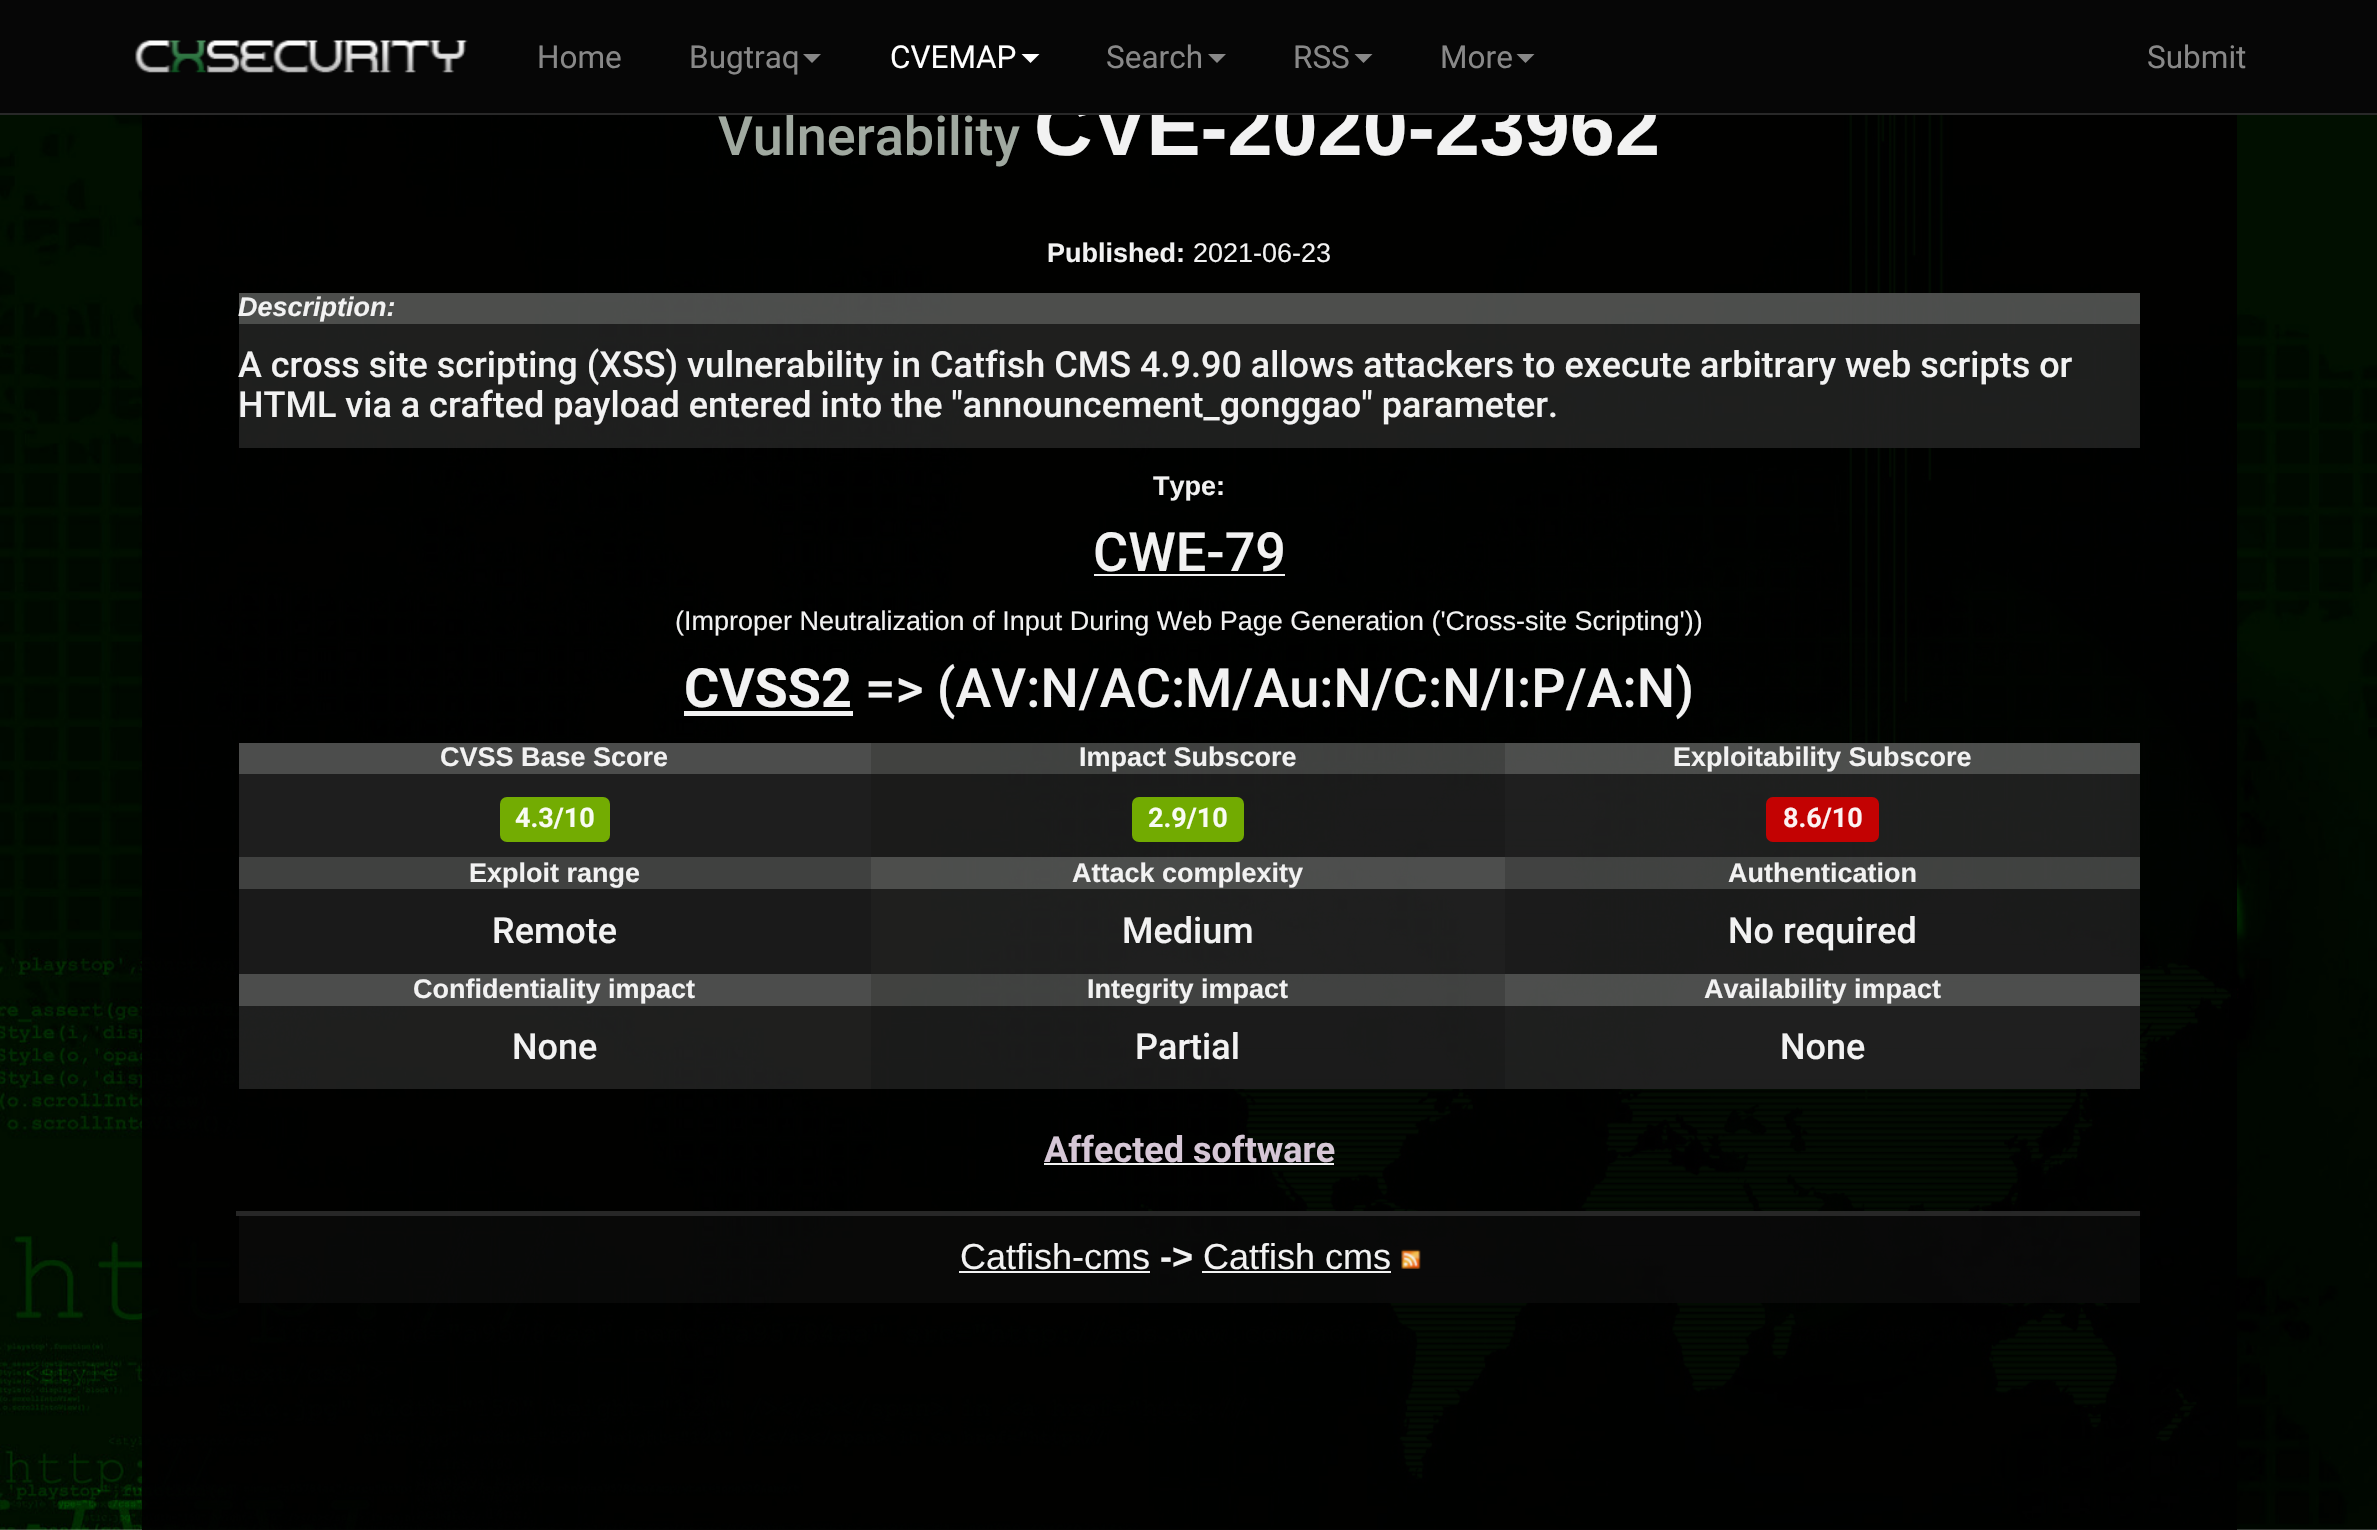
#include "include/core/SkBlurTypes.h"
#include "include/core/SkCanvas.h"
#include "include/core/SkData.h"
#include "include/core/SkFont.h"
#include "include/core/SkFontMgr.h"
#include "include/core/SkImage.h"
#include "include/core/SkMaskFilter.h"
#include "include/core/SkPaint.h"
#include "include/core/SkPathBuilder.h"
#include "include/core/SkTextBlob.h"
#include "include/effects/SkDashPathEffect.h"
#include "include/effects/SkGradientShader.h"
#include "include/utils/SkParsePath.h"

extern sk_sp<SkFontMgr> fontMgr;

void draw(SkCanvas* canvas) {
  SkPaint p;
  p.setAntiAlias(true);
  canvas->clear(SK_ColorWHITE);
  canvas->drawImageRect(SkImages::DeferredFromEncodedData(SkData::MakeFromFileName("images/1.png")), SkRect::MakeLTRB(0, 115, 2377, 1530), SkSamplingOptions());
  p.setColor(SkColorSetARGB(242, 0, 0, 0));
  canvas->drawRect(SkRect::MakeLTRB(142, 115, 239, 1530), p);
  canvas->drawRect(SkRect::MakeLTRB(239, 115, 2140, 1530), p);
  p.setColor(SkColorSetARGB(242, 80, 81, 80));
  canvas->drawRect(SkRect::MakeLTRB(239, 293, 2140, 324), p);
  p.setColor(SkColorSetARGB(242, 32, 32, 32));
  canvas->drawRect(SkRect::MakeLTRB(239, 324, 2140, 448), p);
  p.setColor(SkColorSetRGB(242, 242, 242));
  canvas->drawRect(SkRect::MakeLTRB(1094, 574, 1285, 576), p);
  canvas->drawRect(SkRect::MakeLTRB(684, 711, 853, 716), p);
  p.setColor(SkColorSetRGB(76, 77, 76));
  canvas->drawRect(SkRect::MakeLTRB(239, 743, 871, 774), p);
  p.setColor(SkColorSetARGB(242, 67, 68, 67));
  canvas->drawRect(SkRect::MakeLTRB(871, 743, 1505, 774), p);
  p.setColor(SkColorSetARGB(242, 80, 81, 80));
  canvas->drawRect(SkRect::MakeLTRB(1505, 743, 2140, 774), p);
  p.setColor(SkColorSetRGB(30, 30, 30));
  canvas->drawRect(SkRect::MakeLTRB(239, 774, 871, 857), p);
  p.setColor(SkColorSetRGB(115, 172, 2));
  canvas->drawRoundRect(SkRect::MakeLTRB(500, 797, 610, 842), 7, 7, p);
  p.setColor(SkColorSetARGB(242, 27, 27, 27));
  canvas->drawRect(SkRect::MakeLTRB(871, 774, 1505, 857), p);
  p.setColor(SkColorSetRGB(114, 171, 1));
  canvas->drawRoundRect(SkRect::MakeLTRB(1132, 797, 1244, 842), 7, 7, p);
  p.setColor(SkColorSetARGB(242, 32, 32, 32));
  canvas->drawRect(SkRect::MakeLTRB(1505, 774, 2140, 857), p);
  p.setColor(SkColorSetRGB(195, 2, 2));
  canvas->drawRoundRect(SkRect::MakeLTRB(1766, 797, 1879, 842), 7, 7, p);
  p.setColor(SkColorSetRGB(64, 65, 64));
  canvas->drawRect(SkRect::MakeLTRB(239, 857, 871, 889), p);
  p.setColor(SkColorSetARGB(242, 80, 81, 80));
  canvas->drawRect(SkRect::MakeLTRB(871, 857, 1505, 889), p);
  p.setColor(SkColorSetARGB(242, 67, 68, 67));
  canvas->drawRect(SkRect::MakeLTRB(1505, 857, 2140, 889), p);
  p.setColor(SkColorSetRGB(26, 26, 26));
  canvas->drawRect(SkRect::MakeLTRB(239, 889, 871, 974), p);
  p.setColor(SkColorSetARGB(242, 32, 32, 32));
  canvas->drawRect(SkRect::MakeLTRB(871, 889, 1505, 974), p);
  p.setColor(SkColorSetARGB(242, 27, 27, 27));
  canvas->drawRect(SkRect::MakeLTRB(1505, 889, 2140, 974), p);
  p.setColor(SkColorSetRGB(76, 77, 76));
  canvas->drawRect(SkRect::MakeLTRB(239, 974, 871, 1006), p);
  p.setColor(SkColorSetARGB(242, 67, 68, 67));
  canvas->drawRect(SkRect::MakeLTRB(871, 974, 1505, 1006), p);
  p.setColor(SkColorSetARGB(242, 80, 81, 80));
  canvas->drawRect(SkRect::MakeLTRB(1505, 974, 2140, 1006), p);
  p.setColor(SkColorSetARGB(242, 32, 32, 32));
  canvas->drawRect(SkRect::MakeLTRB(239, 1006, 871, 1089), p);
  p.setColor(SkColorSetARGB(242, 27, 27, 27));
  canvas->drawRect(SkRect::MakeLTRB(871, 1006, 1505, 1089), p);
  p.setColor(SkColorSetARGB(242, 32, 32, 32));
  canvas->drawRect(SkRect::MakeLTRB(1505, 1006, 2140, 1089), p);
  p.setColor(SkColorSetARGB(242, 8, 8, 8));
  canvas->drawRect(SkRect::MakeLTRB(239, 1213, 2140, 1303), p);
  p.setColor(SkColorSetARGB(242, 40, 40, 40));
  canvas->drawRect(SkRect::MakeLTRB(236, 1213, 2142, 1216), p);
  p.setColor(SkColorSetARGB(242, 255, 255, 255));
  canvas->drawRect(SkRect::MakeLTRB(1044, 1163, 1334, 1165), p);
  p.setColor(SkColorSetARGB(242, 40, 40, 40));
  canvas->drawRect(SkRect::MakeLTRB(236, 1211, 2142, 1213), p);
  p.setColor(SkColorSetRGB(243, 243, 243));
  canvas->drawRect(SkRect::MakeLTRB(959, 1271, 1150, 1273), p);
  canvas->drawRect(SkRect::MakeLTRB(1202, 1271, 1391, 1273), p);
  canvas->drawImageRect(SkImages::DeferredFromEncodedData(SkData::MakeFromFileName("images/3.png")), SkRect::MakeLTRB(1401, 1249, 1421, 1269), SkSamplingOptions());
  p.setColor(SkColorSetARGB(242, 0, 0, 0));
  canvas->drawRect(SkRect::MakeLTRB(2140, 115, 2237, 1530), p);
  SkFont font1(fontMgr->matchFamilyStyle("Roboto", SkFontStyle(500, SkFontStyle::kNormal_Width, SkFontStyle::kUpright_Slant)), 54);
  font1.setSubpixel(true);
  p.setColor(SkColorSetRGB(160, 169, 160));
  canvas->drawString("Vulnerability", 718, 155, font1, p);
  SkFont font2(fontMgr->matchFamilyStyle("Liberation Sans", SkFontStyle::Bold()), 81);
  font2.setSubpixel(true);
  p.setColor(SkColorSetRGB(242, 242, 242));
  canvas->drawString("CVE-2020-23962", 1034, 155, font2, p);
  p.setColor(SkColorSetRGB(6, 6, 6));
  canvas->drawRect(SkRect::MakeLTRB(0, 0, 2377, 113), p);
  SkFont font3(fontMgr->matchFamilyStyle("Roboto", SkFontStyle::Normal()), 31.5f);
  font3.setSubpixel(true);
  p.setColor(SkColorSetRGB(136, 136, 136));
  canvas->drawString("Submit", 2147, 68, font3, p);
  canvas->drawPath(SkPathBuilder().moveTo(1516.5f, 54).lineTo(1534.5f, 54).lineTo(1525.5f, 63).close().detach(), p);
  canvas->drawString("More", 1440, 68, font3, p);
  canvas->drawPath(SkPathBuilder().moveTo(1354.5f, 54).lineTo(1372.5f, 54).lineTo(1363.5f, 63).close().detach(), p);
  canvas->drawString("RSS", 1293, 68, font3, p);
  canvas->drawPath(SkPathBuilder().moveTo(1208, 54).lineTo(1226, 54).lineTo(1217, 63).close().detach(), p);
  canvas->drawString("Search", 1106, 68, font3, p);
  p.setColor(SK_ColorWHITE);
  canvas->drawPath(SkPathBuilder().moveTo(1021.5f, 54).lineTo(1039.5f, 54).lineTo(1030.5f, 63).close().detach(), p);
  canvas->drawString("CVEMAP", 890, 68, font3, p);
  p.setColor(SkColorSetRGB(136, 136, 136));
  canvas->drawPath(SkPathBuilder().moveTo(803, 54).lineTo(821, 54).lineTo(812, 63).close().detach(), p);
  canvas->drawString("Bugtraq", 689, 68, font3, p);
  canvas->drawString("Home", 537, 68, font3, p);
  canvas->drawImageRect(SkImages::DeferredFromEncodedData(SkData::MakeFromFileName("images/2.png")), SkRect::MakeLTRB(135, 40, 468, 73), SkSamplingOptions());
  p.setColor(SkColorSetRGB(40, 40, 40));
  canvas->drawRect(SkRect::MakeLTRB(0, 113, 2377, 115), p);
  SkFont font4(fontMgr->matchFamilyStyle("Liberation Sans", SkFontStyle::Bold()), 27);
  font4.setSubpixel(true);
  p.setColor(SkColorSetRGB(242, 242, 242));
  canvas->drawString("Published:", 1047, 262, font4, p);
  SkFont font5(fontMgr->matchFamilyStyle("Liberation Sans", SkFontStyle::Normal()), 27);
  font5.setSubpixel(true);
  canvas->drawString("2021-06-23", 1193, 262, font5, p);
  SkFont font6(fontMgr->matchFamilyStyle("Liberation Sans", SkFontStyle::BoldItalic()), 27);
  font6.setSubpixel(true);
  canvas->drawString("Description:", 238, 316, font6, p);
  SkFont font7(fontMgr->matchFamilyStyle("Roboto", SkFontStyle(500, SkFontStyle::kNormal_Width, SkFontStyle::kUpright_Slant)), 36);
  font7.setSubpixel(true);
  canvas->drawString("A cross site scripting (XSS) vulnerability in Catfish CMS 4.9.90 allows attackers to execute arbitrary web scripts or", 238, 377, font7, p);
  canvas->drawString("HTML via a crafted payload entered into the \"announcement_gonggao\" parameter.", 238, 417, font7, p);
  canvas->drawString("Type:", 1153, 495, font4, p);
  canvas->drawString("CWE-79", 1093, 571, font1, p);
  canvas->drawString("(Improper Neutralization of Input During Web Page Generation ('Cross-site Scripting'))", 675, 630, font5, p);
  SkFont font8(fontMgr->matchFamilyStyle("Roboto", SkFontStyle::Bold()), 54);
  font8.setSubpixel(true);
  canvas->drawString("CVSS2", 684, 707, font8, p);
  canvas->drawString("=> (AV:N/AC:M/Au:N/C:N/I:P/A:N)", 865, 707, font1, p);
  canvas->drawString("CVSS Base Score", 440, 766, font4, p);
  canvas->drawString("Impact Subscore", 1079, 766, font4, p);
  canvas->drawString("Exploitability Subscore", 1673, 766, font4, p);
  SkFont font9(fontMgr->matchFamilyStyle("Roboto", SkFontStyle::Bold()), 27);
  font9.setSubpixel(true);
  p.setColor(SkColorSetRGB(248, 251, 242));
  canvas->drawString("4.3/10", 515, 827, font9, p);
  canvas->drawString("2.9/10", 1148, 827, font9, p);
  p.setColor(SkColorSetRGB(252, 242, 242));
  canvas->drawString("8.6/10", 1783, 827, font9, p);
  p.setColor(SkColorSetRGB(242, 242, 242));
  canvas->drawString("Exploit range", 469, 882, font4, p);
  canvas->drawString("Attack complexity", 1072, 882, font4, p);
  canvas->drawString("Authentication", 1728, 882, font4, p);
  canvas->drawString("Remote", 492, 943, font7, p);
  canvas->drawString("Medium", 1122, 943, font7, p);
  canvas->drawString("No required", 1728, 943, font7, p);
  canvas->drawString("Confidentiality impact", 413, 998, font4, p);
  canvas->drawString("Integrity impact", 1087, 998, font4, p);
  canvas->drawString("Availability impact", 1704, 998, font4, p);
  canvas->drawString("None", 512, 1059, font7, p);
  canvas->drawString("Partial", 1135, 1059, font7, p);
  canvas->drawString("None", 1780, 1059, font7, p);
  SkFont font10(fontMgr->matchFamilyStyle("Roboto", SkFontStyle::Bold()), 36);
  font10.setSubpixel(true);
  p.setColor(SkColorSetRGB(214, 199, 214));
  canvas->drawString("Affected software", 1044, 1162, font10, p);
  SkFont font11(fontMgr->matchFamilyStyle("Liberation Sans", SkFontStyle::Normal()), 36);
  font11.setSubpixel(true);
  p.setColor(SkColorSetRGB(242, 242, 242));
  canvas->drawString("Catfish-cms", 960, 1269, font11, p);
  SkFont font12(fontMgr->matchFamilyStyle("Liberation Sans", SkFontStyle::Bold()), 36);
  font12.setSubpixel(true);
  canvas->drawString("->", 1160, 1269, font12, p);
  canvas->drawString("Catfish cms", 1203, 1269, font11, p);
}
